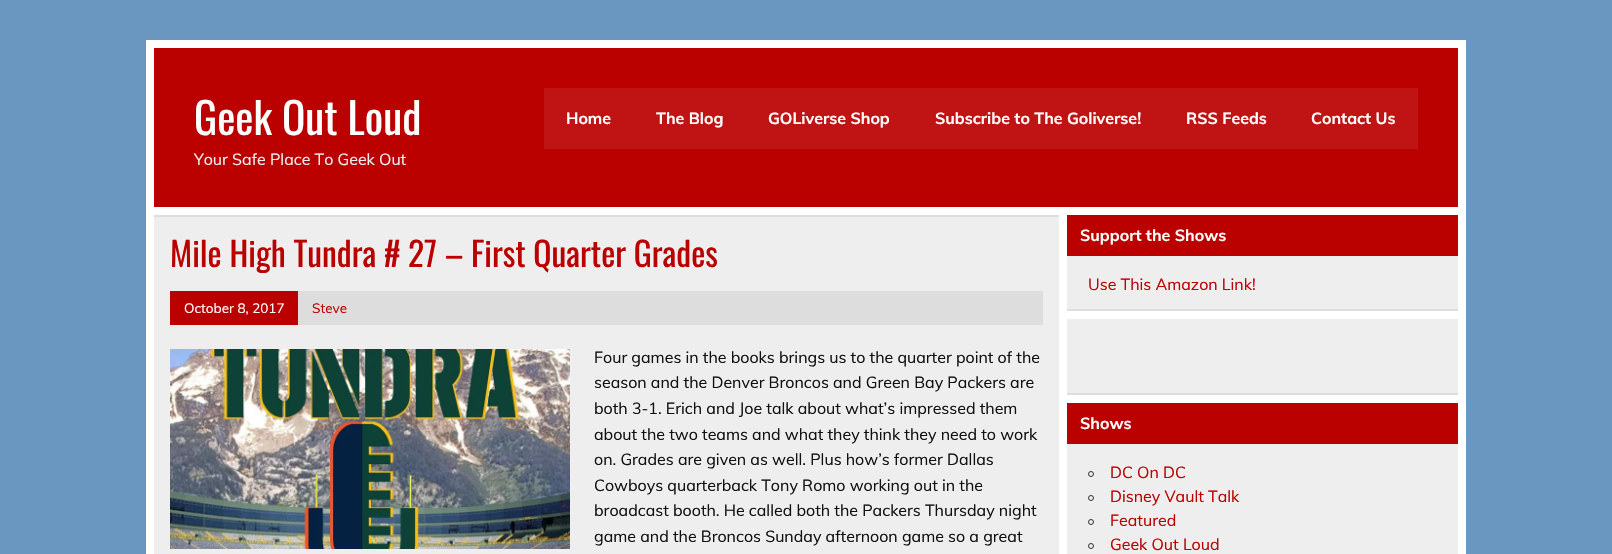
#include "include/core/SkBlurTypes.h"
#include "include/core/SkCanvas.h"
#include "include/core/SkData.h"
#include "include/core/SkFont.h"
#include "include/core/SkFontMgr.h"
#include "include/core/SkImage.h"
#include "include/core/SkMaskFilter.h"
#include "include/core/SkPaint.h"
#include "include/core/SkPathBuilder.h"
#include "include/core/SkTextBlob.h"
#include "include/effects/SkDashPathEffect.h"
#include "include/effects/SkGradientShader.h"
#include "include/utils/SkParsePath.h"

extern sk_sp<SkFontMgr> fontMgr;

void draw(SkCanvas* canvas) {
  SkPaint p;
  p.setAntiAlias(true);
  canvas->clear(SkColorSetRGB(105, 151, 191));
  p.setColor(SK_ColorWHITE);
  canvas->drawRect(SkRect::MakeLTRB(146, 40, 1466, 554), p);
  p.setColor(SkColorSetRGB(187, 0, 0));
  canvas->drawRect(SkRect::MakeLTRB(154, 48, 1458, 207), p);
  p.setColor(SkColorSetRGB(192, 20, 20));
  canvas->drawRect(SkRect::MakeLTRB(544, 88, 1418, 149), p);
  p.setColor(SkColorSetRGB(238, 238, 238));
  canvas->drawRect(SkRect::MakeLTRB(154, 217, 1059, 554), p);
  p.setColor(SkColorSetRGB(221, 221, 221));
  canvas->drawRect(SkRect::MakeLTRB(154, 215, 1059, 217), p);
  canvas->drawRect(SkRect::MakeLTRB(298, 291, 1043, 325), p);
  p.setColor(SkColorSetRGB(187, 0, 0));
  canvas->drawRect(SkRect::MakeLTRB(170, 291, 298, 325), p);
  canvas->drawImageRect(SkImages::DeferredFromEncodedData(SkData::MakeFromFileName("images/1.png")), SkRect::MakeLTRB(170, 349, 570, 549), SkSamplingOptions());
  p.setColor(SkColorSetRGB(238, 238, 238));
  canvas->drawRect(SkRect::MakeLTRB(1067, 256, 1458, 309), p);
  p.setColor(SkColorSetRGB(221, 221, 221));
  canvas->drawRect(SkRect::MakeLTRB(1067, 309, 1458, 311), p);
  p.setColor(SkColorSetRGB(187, 0, 0));
  canvas->drawRect(SkRect::MakeLTRB(1067, 215, 1458, 256), p);
  p.setColor(SkColorSetRGB(238, 238, 238));
  canvas->drawRect(SkRect::MakeLTRB(1067, 319, 1458, 393), p);
  p.setColor(SkColorSetRGB(221, 221, 221));
  canvas->drawRect(SkRect::MakeLTRB(1067, 393, 1458, 395), p);
  p.setColor(SkColorSetRGB(238, 238, 238));
  canvas->drawRect(SkRect::MakeLTRB(1067, 444, 1458, 554), p);
  p.setColor(SkColorSetRGB(187, 0, 0));
  canvas->drawRect(SkRect::MakeLTRB(1067, 403, 1458, 444), p);
  p.setStyle(SkPaint::kStroke_Style);
  p.setStrokeWidth(1);
  p.setColor(SkColorSetRGB(51, 51, 51));
  canvas->drawCircle(1091, 474, 2.5f, p);
  canvas->drawCircle(1091, 498, 2.5f, p);
  canvas->drawCircle(1091, 522, 2.5f, p);
  canvas->drawCircle(1091, 546, 2.5f, p);
  SkFont font1(fontMgr->matchFamilyStyle("Oswald", SkFontStyle::Normal()), 43.25f);
  font1.setSubpixel(true);
  p.setStyle(SkPaint::kFill_Style);
  p.setColor(SK_ColorWHITE);
  canvas->drawString("Geek Out Loud", 194, 135, font1, p);
  SkFont font2(fontMgr->matchFamilyStyle("Muli", SkFontStyle::Normal()), 16);
  font2.setSubpixel(true);
  p.setColor(SkColorSetRGB(238, 238, 238));
  canvas->drawString("Your Safe Place To Geek Out", 194, 165, font2, p);
  SkFont font3(fontMgr->matchFamilyStyle("Muli", SkFontStyle::Bold()), 16);
  font3.setSubpixel(true);
  p.setColor(SK_ColorWHITE);
  canvas->drawString("Home", 566, 124, font3, p);
  canvas->drawString("The Blog", 656, 124, font3, p);
  canvas->drawString("GOLiverse Shop", 768, 124, font3, p);
  canvas->drawString("Subscribe to The Goliverse!", 935, 124, font3, p);
  canvas->drawString("RSS Feeds", 1186, 124, font3, p);
  canvas->drawString("Contact Us", 1311, 124, font3, p);
  SkFont font4(fontMgr->matchFamilyStyle("Oswald", SkFontStyle::Normal()), 33.6f);
  font4.setSubpixel(true);
  p.setColor(SkColorSetRGB(187, 0, 0));
  canvas->drawString("Mile High Tundra # 27 – First Quarter Grades", 170, 267, font4, p);
  SkFont font5(fontMgr->matchFamilyStyle("Muli", SkFontStyle::Normal()), 13.5f);
  font5.setSubpixel(true);
  p.setColor(SK_ColorWHITE);
  canvas->drawString("October 8, 2017", 184, 313, font5, p);
  p.setColor(SkColorSetRGB(187, 0, 0));
  canvas->drawString("Steve", 312, 313, font5, p);
  p.setColor(SkColorSetRGB(17, 17, 17));
  canvas->drawString("Four games in the books brings us to the quarter point of the", 594, 363, font2, p);
  canvas->drawString("season and the Denver Broncos and Green Bay Packers are", 594, 388, font2, p);
  canvas->drawString("both 3-1. Erich and Joe talk about what’s impressed them", 594, 414, font2, p);
  canvas->drawString("about the two teams and what they think they need to work", 594, 440, font2, p);
  canvas->drawString("on. Grades are given as well. Plus how’s former Dallas", 594, 465, font2, p);
  canvas->drawString("Cowboys quarterback Tony Romo working out in the", 594, 491, font2, p);
  canvas->drawString("broadcast booth. He called both the Packers Thursday night", 594, 516, font2, p);
  canvas->drawString("game and the Broncos Sunday afternoon game so a great", 594, 542, font2, p);
  p.setColor(SK_ColorWHITE);
  canvas->drawString("Support the Shows", 1080, 241, font3, p);
  p.setColor(SkColorSetRGB(187, 0, 0));
  canvas->drawString("Use This Amazon Link!", 1088, 290, font2, p);
  p.setColor(SK_ColorWHITE);
  canvas->drawString("Shows", 1080, 429, font3, p);
  p.setColor(SkColorSetRGB(187, 0, 0));
  canvas->drawString("DC On DC", 1110, 478, font2, p);
  canvas->drawString("Disney Vault Talk", 1110, 502, font2, p);
  canvas->drawString("Featured", 1110, 526, font2, p);
  canvas->drawString("Geek Out Loud", 1110, 550, font2, p);
}
